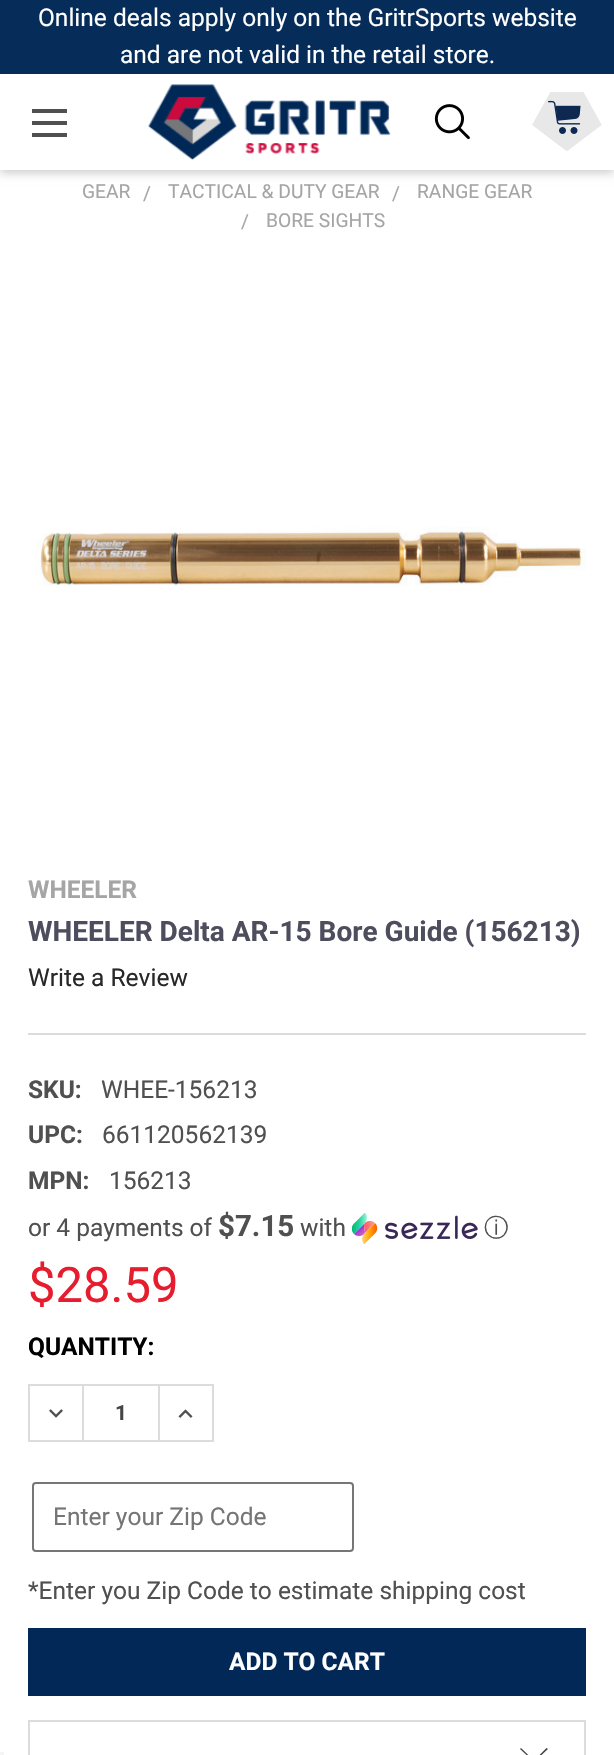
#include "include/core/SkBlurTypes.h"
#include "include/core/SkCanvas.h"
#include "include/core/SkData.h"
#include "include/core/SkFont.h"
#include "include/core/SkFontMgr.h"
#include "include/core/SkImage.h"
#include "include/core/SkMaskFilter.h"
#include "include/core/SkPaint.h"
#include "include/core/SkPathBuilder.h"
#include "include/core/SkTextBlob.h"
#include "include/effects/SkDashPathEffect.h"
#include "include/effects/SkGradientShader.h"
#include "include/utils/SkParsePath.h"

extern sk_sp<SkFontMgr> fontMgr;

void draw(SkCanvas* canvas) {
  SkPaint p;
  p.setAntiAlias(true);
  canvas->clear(SK_ColorWHITE);
  p.setColor(SkColorSetARGB(51, 0, 0, 0));
  p.setMaskFilter(SkMaskFilter::MakeBlur(kNormal_SkBlurStyle, 4.5f));
  canvas->drawRect(SkRect::MakeLTRB(0, 77, 614, 173), p);
  p.setMaskFilter(nullptr);
  p.setColor(SkColorSetRGB(6, 45, 90));
  canvas->drawRect(SkRect::MakeLTRB(0, 0, 614, 74), p);
  p.setColor(SK_ColorWHITE);
  canvas->drawRect(SkRect::MakeLTRB(0, 74, 614, 170), p);
  p.setColor(SkColorSetRGB(80, 80, 80));
  canvas->drawRect(SkRect::MakeLTRB(32, 121, 67, 125), p);
  canvas->drawRect(SkRect::MakeLTRB(32, 109, 67, 113), p);
  canvas->drawRect(SkRect::MakeLTRB(32, 133, 67, 137), p);
  canvas->drawImageRect(SkImages::DeferredFromEncodedData(SkData::MakeFromFileName("images/1.png")), SkRect::MakeLTRB(148, 84, 391, 160), SkSamplingOptions());
  canvas->drawImageRect(SkImages::DeferredFromEncodedData(SkData::MakeFromFileName("images/2.png")), SkRect::MakeLTRB(434, 104, 470, 140), SkSamplingOptions());
  canvas->drawImageRect(SkImages::DeferredFromEncodedData(SkData::MakeFromFileName("images/3.png")), SkRect::MakeLTRB(532, 92, 602, 151), SkSamplingOptions());
  canvas->drawImageRect(SkImages::DeferredFromEncodedData(SkData::MakeFromFileName("images/4.png")), SkRect::MakeLTRB(36, 526, 586, 586), SkSamplingOptions());
  p.setColor(SkColorSetRGB(220, 220, 220));
  canvas->drawRect(SkRect::MakeLTRB(28, 1033, 586, 1035), p);
  canvas->drawImageRect(SkImages::DeferredFromEncodedData(SkData::MakeFromFileName("images/5.png")), SkRect::MakeLTRB(352, 1213, 478, 1244), SkSamplingOptions());
  canvas->drawRect(SkRect::MakeLTRB(28, 1384, 214, 1386), p);
  canvas->drawRect(SkRect::MakeLTRB(28, 1440, 214, 1442), p);
  canvas->drawRect(SkRect::MakeLTRB(82, 1386, 84, 1440), p);
  canvas->drawRect(SkRect::MakeLTRB(28, 1386, 30, 1440), p);
  canvas->drawImageRect(SkImages::DeferredFromEncodedData(SkData::MakeFromFileName("images/6.png")), SkRect::MakeLTRB(49, 1409, 63, 1418), SkSamplingOptions());
  canvas->drawRect(SkRect::MakeLTRB(212, 1386, 214, 1440), p);
  canvas->drawRect(SkRect::MakeLTRB(158, 1386, 160, 1440), p);
  canvas->drawImageRect(SkImages::DeferredFromEncodedData(SkData::MakeFromFileName("images/7.png")), SkRect::MakeLTRB(178, 1409, 193, 1418), SkSamplingOptions());
  p.setStyle(SkPaint::kStroke_Style);
  p.setStrokeWidth(2);
  p.setColor(SkColorSetRGB(118, 118, 118));
  canvas->drawRoundRect(SkRect::MakeLTRB(33, 1483, 353, 1551), 3, 3, p);
  p.setStyle(SkPaint::kFill_Style);
  p.setColor(SkColorSetRGB(2, 40, 88));
  canvas->drawRect(SkRect::MakeLTRB(28, 1628, 586, 1696), p);
  p.setStyle(SkPaint::kStroke_Style);
  p.setColor(SkColorSetRGB(220, 220, 220));
  canvas->drawRect(SkRect::MakeLTRB(29, 1721, 585, 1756), p);
  p.setStyle(SkPaint::kFill_Style);
  p.setColor(SkColorSetRGB(69, 69, 69));
  canvas->drawPath(SkPathBuilder(SkPathFillType::kEvenOdd).moveTo(534, 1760.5f).lineTo(546.5f, 1748).lineTo(548, 1749).lineTo(534, 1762).lineTo(520, 1749).lineTo(521, 1748).close().detach(), p);
  p.setColor(SkColorSetRGB(245, 245, 245));
  canvas->drawRect(SkRect::MakeLTRB(0, 1752, 4, 1755), p);
  SkFont font1(fontMgr->matchFamilyStyle("Roboto", SkFontStyle::Normal()), 24.5f);
  font1.setSubpixel(true);
  p.setColor(SK_ColorWHITE);
  canvas->drawString("Online deals apply only on the GritrSports website", 38, 26, font1, p);
  canvas->drawString("and are not valid in the retail store.", 120, 63, font1, p);
  SkFont font2(fontMgr->matchFamilyStyle("Roboto", SkFontStyle::Normal()), 19.25f);
  font2.setSubpixel(true);
  p.setColor(SkColorSetRGB(165, 165, 165));
  canvas->drawString("GEAR", 82, 198, font2, p);
  canvas->drawString("/", 143, 200, font2, p);
  canvas->drawString("TACTICAL & DUTY GEAR", 168, 198, font2, p);
  canvas->drawString("/", 392, 200, font2, p);
  canvas->drawString("RANGE GEAR", 417, 198, font2, p);
  canvas->drawString("/", 241, 228, font2, p);
  canvas->drawString("BORE SIGHTS", 266, 227, font2, p);
  SkFont font3(fontMgr->matchFamilyStyle("Roboto", SkFontStyle::Bold()), 24.5f);
  font3.setSubpixel(true);
  canvas->drawString("WHEELER", 28, 898, font3, p);
  SkFont font4(fontMgr->matchFamilyStyle("Roboto", SkFontStyle::Bold()), 28);
  font4.setSubpixel(true);
  p.setColor(SkColorSetRGB(78, 77, 94));
  canvas->drawString("WHEELER Delta AR-15 Bore Guide (156213)", 28, 941, font4, p);
  p.setColor(SkColorSetRGB(40, 40, 40));
  canvas->drawString("Write a Review", 28, 986, font1, p);
  p.setColor(SkColorSetRGB(80, 80, 80));
  canvas->drawString("SKU:", 28, 1098, font3, p);
  canvas->drawString("WHEE-156213", 101, 1098, font1, p);
  canvas->drawString("UPC:", 28, 1143, font3, p);
  canvas->drawString("661120562139", 102, 1143, font1, p);
  canvas->drawString("MPN:", 28, 1189, font3, p);
  canvas->drawString("156213", 109, 1189, font1, p);
  canvas->drawString("or 4 payments of", 28, 1236, font1, p);
  SkFont font5(fontMgr->matchFamilyStyle("Roboto", SkFontStyle::Bold()), 29.5f);
  font5.setSubpixel(true);
  canvas->drawString("$7.15", 218, 1236, font5, p);
  canvas->drawString("with", 300, 1236, font1, p);
  SkFont font6(fontMgr->matchFamilyStyle("WenQuanYi Zen Hei", SkFontStyle(500, SkFontStyle::kNormal_Width, SkFontStyle::kUpright_Slant)), 24.5f);
  font6.setSubpixel(true);
  canvas->drawString("ⓘ", 484, 1236, font6, p);
  SkFont font7(fontMgr->matchFamilyStyle("Roboto", SkFontStyle::Normal()), 49);
  font7.setSubpixel(true);
  p.setColor(SkColorSetRGB(230, 29, 47));
  canvas->drawString("$28.59", 28, 1302, font7, p);
  p.setColor(SK_ColorBLACK);
  canvas->drawString("QUANTITY:", 28, 1355, font3, p);
  SkFont font8(fontMgr->matchFamilyStyle("Roboto", SkFontStyle::Bold()), 21);
  font8.setSubpixel(true);
  p.setColor(SkColorSetRGB(69, 69, 69));
  canvas->drawString("1", 115, 1420, font8, p);
  p.setColor(SkColorSetRGB(117, 117, 117));
  canvas->drawString("Enter your Zip Code", 53, 1525, font1, p);
  p.setColor(SkColorSetRGB(80, 80, 80));
  canvas->drawString("*Enter you Zip Code to estimate shipping cost", 28, 1599, font1, p);
  p.setColor(SK_ColorWHITE);
  canvas->drawString("ADD TO CART", 229, 1670, font3, p);
}
